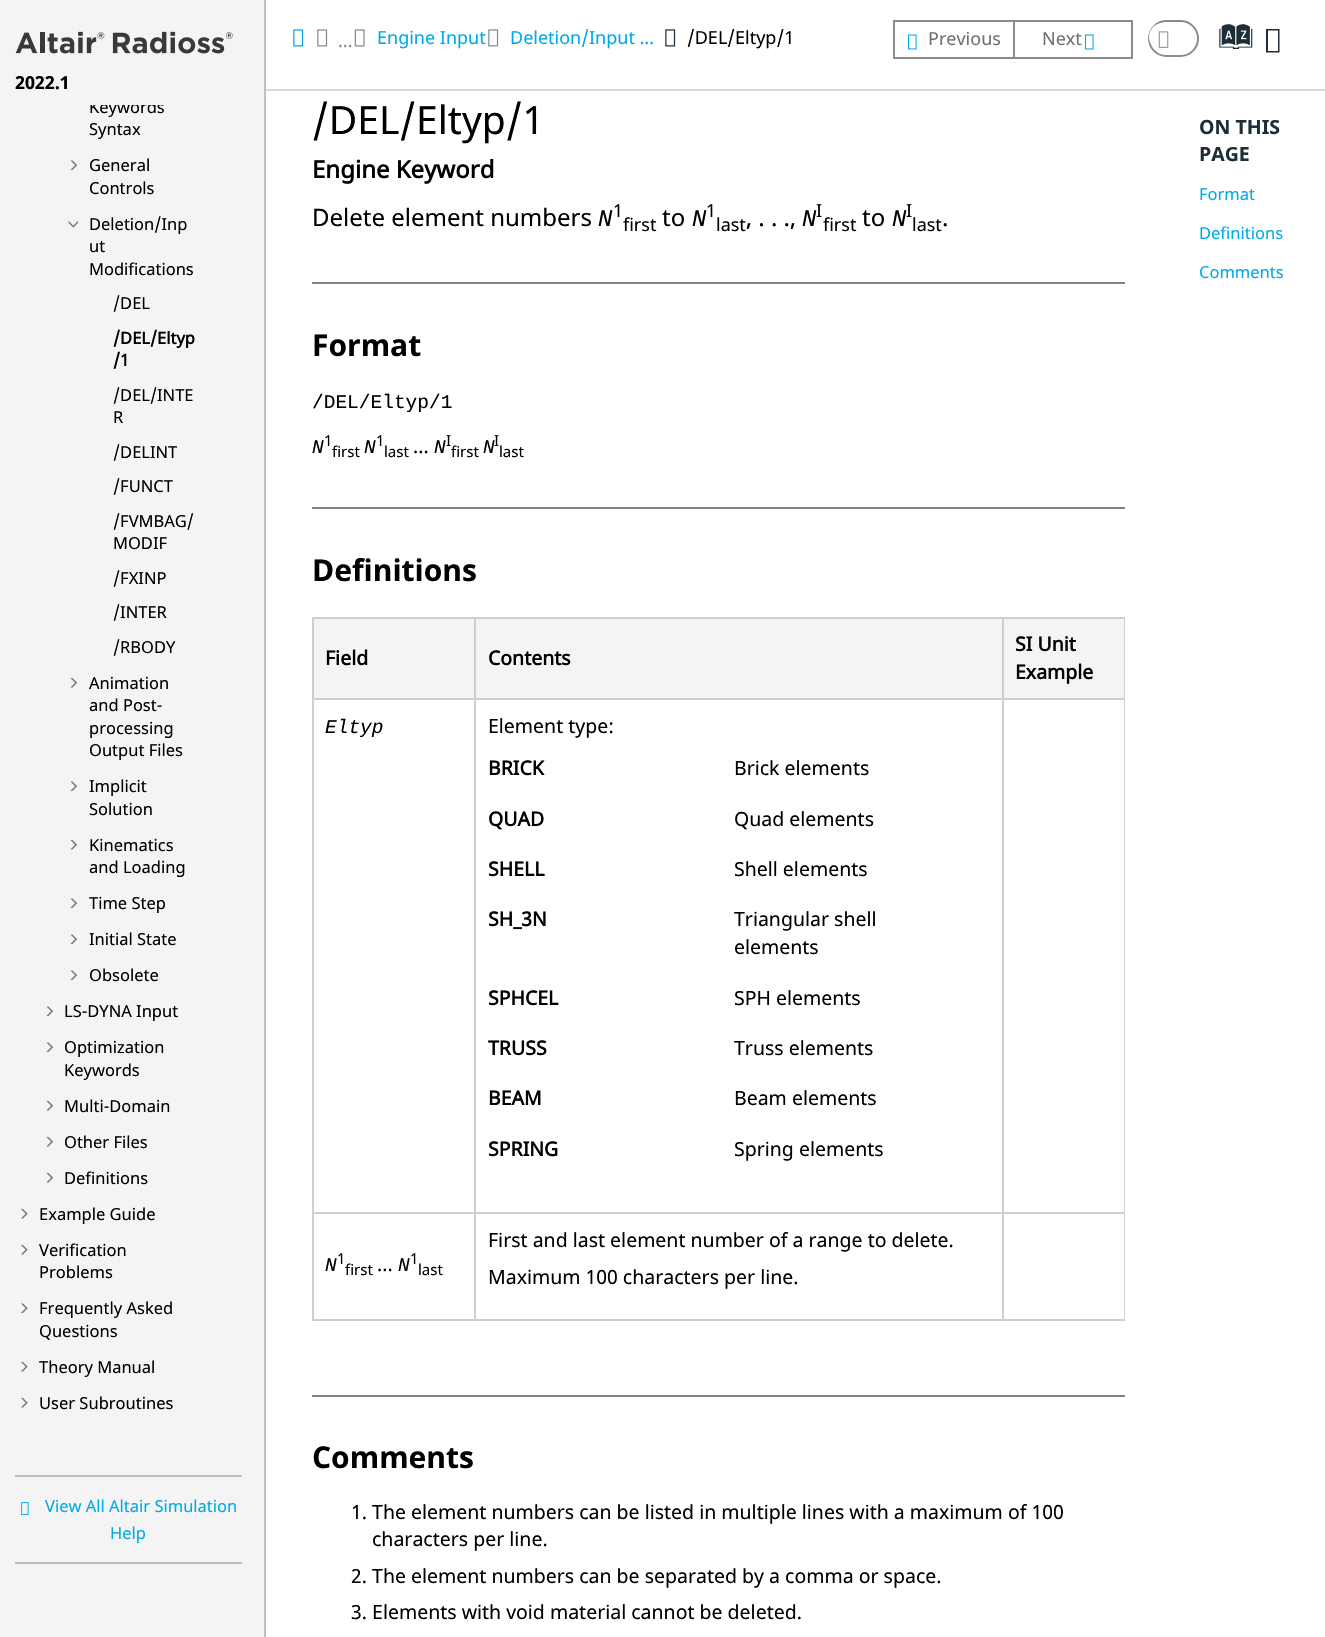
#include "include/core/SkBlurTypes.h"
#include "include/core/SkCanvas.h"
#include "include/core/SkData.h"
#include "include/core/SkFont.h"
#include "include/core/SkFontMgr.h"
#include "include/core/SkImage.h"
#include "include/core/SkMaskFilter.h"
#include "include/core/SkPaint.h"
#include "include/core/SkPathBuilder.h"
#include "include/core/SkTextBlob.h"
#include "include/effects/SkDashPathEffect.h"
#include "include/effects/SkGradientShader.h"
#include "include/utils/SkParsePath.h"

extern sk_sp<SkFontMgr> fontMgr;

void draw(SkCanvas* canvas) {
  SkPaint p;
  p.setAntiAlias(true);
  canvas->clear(SK_ColorWHITE);
  p.setColor(SkColorSetRGB(244, 244, 244));
  canvas->drawRect(SkRect::MakeLTRB(0, 0, 264, 1637), p);
  p.setColor(SkColorSetRGB(192, 192, 192));
  canvas->drawRect(SkRect::MakeLTRB(264, 0, 266, 1637), p);
  canvas->drawImageRect(SkImages::DeferredFromEncodedData(SkData::MakeFromFileName("images/1.png")), SkRect::MakeLTRB(15, 31, 233, 54), SkSamplingOptions());
  canvas->drawImageRect(SkImages::DeferredFromEncodedData(SkData::MakeFromFileName("images/2.png")), SkRect::MakeLTRB(70, 160, 77, 170), SkSamplingOptions());
  canvas->drawImageRect(SkImages::DeferredFromEncodedData(SkData::MakeFromFileName("images/3.png")), SkRect::MakeLTRB(68, 221, 79, 228), SkSamplingOptions());
  canvas->drawImageRect(SkImages::DeferredFromEncodedData(SkData::MakeFromFileName("images/4.png")), SkRect::MakeLTRB(70, 677, 77, 688), SkSamplingOptions());
  canvas->drawImageRect(SkImages::DeferredFromEncodedData(SkData::MakeFromFileName("images/2.png")), SkRect::MakeLTRB(70, 781, 77, 791), SkSamplingOptions());
  canvas->drawImageRect(SkImages::DeferredFromEncodedData(SkData::MakeFromFileName("images/4.png")), SkRect::MakeLTRB(70, 839, 77, 850), SkSamplingOptions());
  canvas->drawImageRect(SkImages::DeferredFromEncodedData(SkData::MakeFromFileName("images/2.png")), SkRect::MakeLTRB(70, 898, 77, 908), SkSamplingOptions());
  canvas->drawImageRect(SkImages::DeferredFromEncodedData(SkData::MakeFromFileName("images/2.png")), SkRect::MakeLTRB(70, 934, 77, 944), SkSamplingOptions());
  canvas->drawImageRect(SkImages::DeferredFromEncodedData(SkData::MakeFromFileName("images/2.png")), SkRect::MakeLTRB(70, 970, 77, 980), SkSamplingOptions());
  canvas->drawImageRect(SkImages::DeferredFromEncodedData(SkData::MakeFromFileName("images/2.png")), SkRect::MakeLTRB(46, 1006, 53, 1016), SkSamplingOptions());
  canvas->drawImageRect(SkImages::DeferredFromEncodedData(SkData::MakeFromFileName("images/2.png")), SkRect::MakeLTRB(46, 1042, 53, 1052), SkSamplingOptions());
  canvas->drawImageRect(SkImages::DeferredFromEncodedData(SkData::MakeFromFileName("images/4.png")), SkRect::MakeLTRB(46, 1100, 53, 1111), SkSamplingOptions());
  canvas->drawImageRect(SkImages::DeferredFromEncodedData(SkData::MakeFromFileName("images/4.png")), SkRect::MakeLTRB(46, 1136, 53, 1147), SkSamplingOptions());
  canvas->drawImageRect(SkImages::DeferredFromEncodedData(SkData::MakeFromFileName("images/4.png")), SkRect::MakeLTRB(46, 1172, 53, 1183), SkSamplingOptions());
  canvas->drawImageRect(SkImages::DeferredFromEncodedData(SkData::MakeFromFileName("images/5.png")), SkRect::MakeLTRB(21, 1208, 28, 1219), SkSamplingOptions());
  canvas->drawImageRect(SkImages::DeferredFromEncodedData(SkData::MakeFromFileName("images/5.png")), SkRect::MakeLTRB(21, 1244, 28, 1255), SkSamplingOptions());
  canvas->drawImageRect(SkImages::DeferredFromEncodedData(SkData::MakeFromFileName("images/6.png")), SkRect::MakeLTRB(21, 1303, 28, 1313), SkSamplingOptions());
  canvas->drawImageRect(SkImages::DeferredFromEncodedData(SkData::MakeFromFileName("images/5.png")), SkRect::MakeLTRB(21, 1361, 28, 1372), SkSamplingOptions());
  canvas->drawImageRect(SkImages::DeferredFromEncodedData(SkData::MakeFromFileName("images/5.png")), SkRect::MakeLTRB(21, 1397, 28, 1408), SkSamplingOptions());
  p.setColor(SkColorSetRGB(190, 190, 190));
  canvas->drawRect(SkRect::MakeLTRB(15, 1475, 242, 1477), p);
  canvas->drawRect(SkRect::MakeLTRB(15, 1562, 242, 1564), p);
  canvas->drawImageRect(SkImages::DeferredFromEncodedData(SkData::MakeFromFileName("images/7.png")), SkRect::MakeLTRB(21, 1502, 29, 1515), SkSamplingOptions());
  p.setColor(SkColorSetRGB(216, 216, 216));
  canvas->drawRect(SkRect::MakeLTRB(266, 89, 1325, 91), p);
  canvas->drawImageRect(SkImages::DeferredFromEncodedData(SkData::MakeFromFileName("images/8.png")), SkRect::MakeLTRB(293, 29, 304, 47), SkSamplingOptions());
  canvas->drawImageRect(SkImages::DeferredFromEncodedData(SkData::MakeFromFileName("images/9.png")), SkRect::MakeLTRB(317, 29, 328, 47), SkSamplingOptions());
  canvas->drawImageRect(SkImages::DeferredFromEncodedData(SkData::MakeFromFileName("images/10.png")), SkRect::MakeLTRB(354, 29, 365, 47), SkSamplingOptions());
  canvas->drawImageRect(SkImages::DeferredFromEncodedData(SkData::MakeFromFileName("images/9.png")), SkRect::MakeLTRB(488, 29, 499, 47), SkSamplingOptions());
  canvas->drawImageRect(SkImages::DeferredFromEncodedData(SkData::MakeFromFileName("images/11.png")), SkRect::MakeLTRB(665, 29, 676, 47), SkSamplingOptions());
  p.setColor(SkColorSetRGB(139, 139, 139));
  canvas->drawRect(SkRect::MakeLTRB(893, 20, 1013, 22), p);
  canvas->drawRect(SkRect::MakeLTRB(893, 57, 1013, 59), p);
  canvas->drawRect(SkRect::MakeLTRB(893, 20, 895, 59), p);
  canvas->drawImageRect(SkImages::DeferredFromEncodedData(SkData::MakeFromFileName("images/12.png")), SkRect::MakeLTRB(907, 34, 917, 50), SkSamplingOptions());
  p.setStyle(SkPaint::kStroke_Style);
  p.setStrokeWidth(2);
  canvas->drawRect(SkRect::MakeLTRB(1014, 21, 1132, 58), p);
  canvas->drawImageRect(SkImages::DeferredFromEncodedData(SkData::MakeFromFileName("images/12.png")), SkRect::MakeLTRB(1084, 34, 1094, 50), SkSamplingOptions());
  canvas->drawRoundRect(SkRect::MakeLTRB(1149, 21, 1198, 56), 17.5f, 17.5f, p);
  p.setStyle(SkPaint::kFill_Style);
  p.setColor(SK_ColorWHITE);
  canvas->drawRoundRect(SkRect::MakeLTRB(1149, 23, 1179, 51), 14, 14, p);
  canvas->drawImageRect(SkImages::DeferredFromEncodedData(SkData::MakeFromFileName("images/13.png")), SkRect::MakeLTRB(1158, 31, 1169, 48), SkSamplingOptions());
  p.setColor(SkColorSetRGB(29, 46, 56));
  canvas->drawPath(SkPathBuilder().moveTo(1266, 52.5f).lineTo(1266, 29).lineTo(1279.5f, 29).lineTo(1279.5f, 52.5f).close().moveTo(1268, 51).lineTo(1278, 51).lineTo(1278, 30.5f).lineTo(1268, 30.5f).close().detach(), p);
  p.setColor(SkColorSetRGB(130, 130, 130));
  canvas->drawRect(SkRect::MakeLTRB(312, 282, 1125, 284), p);
  canvas->drawRect(SkRect::MakeLTRB(312, 507, 1125, 509), p);
  p.setColor(SkColorSetRGB(207, 207, 207));
  canvas->drawRect(SkRect::MakeLTRB(312, 617, 1125, 619), p);
  canvas->drawRect(SkRect::MakeLTRB(1124, 617, 1125, 1320), p);
  canvas->drawRect(SkRect::MakeLTRB(312, 1319, 1125, 1321), p);
  canvas->drawRect(SkRect::MakeLTRB(312, 617, 314, 1320), p);
  p.setColor(SkColorSetRGB(244, 244, 244));
  canvas->drawRect(SkRect::MakeLTRB(314, 619, 474, 698), p);
  canvas->drawRect(SkRect::MakeLTRB(476, 619, 1002, 698), p);
  p.setColor(SkColorSetRGB(207, 207, 207));
  canvas->drawRect(SkRect::MakeLTRB(1002, 698, 1125, 700), p);
  canvas->drawRect(SkRect::MakeLTRB(1002, 1212, 1125, 1214), p);
  canvas->drawRect(SkRect::MakeLTRB(1002, 1212, 1004, 1320), p);
  canvas->drawRect(SkRect::MakeLTRB(474, 1212, 1004, 1214), p);
  canvas->drawRect(SkRect::MakeLTRB(1002, 698, 1004, 1214), p);
  canvas->drawRect(SkRect::MakeLTRB(474, 698, 1004, 700), p);
  canvas->drawRect(SkRect::MakeLTRB(474, 1212, 476, 1320), p);
  canvas->drawRect(SkRect::MakeLTRB(312, 1212, 476, 1214), p);
  canvas->drawRect(SkRect::MakeLTRB(474, 698, 476, 1214), p);
  canvas->drawRect(SkRect::MakeLTRB(312, 698, 476, 700), p);
  canvas->drawRect(SkRect::MakeLTRB(474, 617, 476, 699), p);
  p.setColor(SkColorSetRGB(244, 244, 244));
  canvas->drawRect(SkRect::MakeLTRB(1004, 619, 1124, 698), p);
  p.setColor(SkColorSetRGB(207, 207, 207));
  canvas->drawRect(SkRect::MakeLTRB(1002, 617, 1004, 699), p);
  p.setColor(SkColorSetRGB(130, 130, 130));
  canvas->drawRect(SkRect::MakeLTRB(312, 1395, 1125, 1397), p);
  SkFont font1(fontMgr->matchFamilyStyle("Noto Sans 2", SkFontStyle::Bold()), 18);
  font1.setSubpixel(true);
  p.setColor(SK_ColorBLACK);
  canvas->drawString("2022.1", 15, 89, font1, p);
  SkFont font2(fontMgr->matchFamilyStyle("Noto Sans", SkFontStyle::Normal()), 16.5f);
  font2.setSubpixel(true);
  canvas->drawString("Keywords", 89, 113, font2, p);
  p.setColor(SkColorSetRGB(244, 244, 244));
  canvas->drawRect(SkRect::MakeLTRB(90, 100, 164, 105), p);
  p.setColor(SK_ColorBLACK);
  canvas->drawString("Syntax", 89, 135, font2, p);
  canvas->drawString("General", 89, 171, font2, p);
  canvas->drawString("Controls", 89, 194, font2, p);
  canvas->drawString("Deletion/Inp", 89, 230, font2, p);
  canvas->drawString("ut", 89, 252, font2, p);
  canvas->drawString("Modifications", 89, 275, font2, p);
  canvas->drawString("/DEL", 113, 309, font2, p);
  SkFont font3(fontMgr->matchFamilyStyle("Noto Sans", SkFontStyle::Bold()), 16.5f);
  font3.setSubpixel(true);
  canvas->drawString("/DEL/Eltyp", 113, 344, font3, p);
  canvas->drawString("/1", 113, 366, font3, p);
  canvas->drawString("/DEL/INTE", 113, 401, font2, p);
  canvas->drawString("R", 113, 423, font2, p);
  canvas->drawString("/DELINT", 113, 458, font2, p);
  canvas->drawString("/FUNCT", 113, 492, font2, p);
  canvas->drawString("/FVMBAG/", 113, 527, font2, p);
  canvas->drawString("MODIF", 113, 549, font2, p);
  canvas->drawString("/FXINP", 113, 584, font2, p);
  canvas->drawString("/INTER", 113, 618, font2, p);
  canvas->drawString("/RBODY", 113, 653, font2, p);
  canvas->drawString("Animation", 89, 689, font2, p);
  canvas->drawString("and Post-", 89, 711, font2, p);
  canvas->drawString("processing", 89, 734, font2, p);
  canvas->drawString("Output Files", 89, 756, font2, p);
  canvas->drawString("Implicit", 89, 792, font2, p);
  canvas->drawString("Solution", 89, 815, font2, p);
  canvas->drawString("Kinematics", 89, 851, font2, p);
  canvas->drawString("and Loading", 89, 873, font2, p);
  canvas->drawString("Time Step", 89, 909, font2, p);
  canvas->drawString("Initial State", 89, 945, font2, p);
  canvas->drawString("Obsolete", 89, 981, font2, p);
  canvas->drawString("LS-DYNA Input", 64, 1017, font2, p);
  canvas->drawString("Optimization", 64, 1053, font2, p);
  canvas->drawString("Keywords", 64, 1076, font2, p);
  canvas->drawString("Multi-Domain", 64, 1112, font2, p);
  canvas->drawString("Other Files", 64, 1148, font2, p);
  canvas->drawString("Definitions", 64, 1184, font2, p);
  canvas->drawString("Example Guide", 39, 1220, font2, p);
  canvas->drawString("Verification", 39, 1256, font2, p);
  canvas->drawString("Problems", 39, 1278, font2, p);
  canvas->drawString("Frequently Asked", 39, 1314, font2, p);
  canvas->drawString("Questions", 39, 1337, font2, p);
  canvas->drawString("Theory Manual", 39, 1373, font2, p);
  canvas->drawString("User Subroutines", 39, 1409, font2, p);
  p.setColor(SkColorSetRGB(0, 170, 230));
  canvas->drawString("View All Altair Simulation", 45, 1512, font2, p);
  canvas->drawString("Help", 110, 1539, font2, p);
  SkFont font4(fontMgr->matchFamilyStyle("Noto Sans", SkFontStyle::Normal()), 18);
  font4.setSubpixel(true);
  p.setColor(SkColorSetRGB(133, 137, 141));
  canvas->drawString("...", 338, 47, font4, p);
  p.setColor(SkColorSetRGB(0, 170, 230));
  canvas->drawString("Engine Input", 377, 44, font4, p);
  canvas->drawString("Deletion/Input …", 510, 44, font4, p);
  p.setColor(SK_ColorBLACK);
  canvas->drawString("/DEL/Eltyp/1", 687, 44, font4, p);
  p.setColor(SkColorSetRGB(112, 112, 112));
  canvas->drawString("Previous", 928, 45, font4, p);
  canvas->drawString("Next", 1042, 45, font4, p);
  SkFont font5(fontMgr->matchFamilyStyle("Oxygen", SkFontStyle::Normal()), 35);
  font5.setSubpixel(true);
  p.setColor(SkColorSetRGB(29, 46, 56));
  canvas->drawString("a", 1223, 53, font5, p);
  SkFont font6(fontMgr->matchFamilyStyle("Noto Sans", SkFontStyle::Normal()), 39);
  font6.setSubpixel(true);
  p.setColor(SK_ColorBLACK);
  canvas->drawString("/DEL/Eltyp/1", 312, 134, font6, p);
  SkFont font7(fontMgr->matchFamilyStyle("Noto Sans", SkFontStyle::Bold()), 24);
  font7.setSubpixel(true);
  canvas->drawString("Engine Keyword", 312, 178, font7, p);
  SkFont font8(fontMgr->matchFamilyStyle("Noto Sans", SkFontStyle::Normal()), 24);
  font8.setSubpixel(true);
  canvas->drawString("Delete element numbers", 312, 226, font8, p);
  SkFont font9(fontMgr->matchFamilyStyle("Liberation Mono", SkFontStyle::Italic()), 24);
  font9.setSubpixel(true);
  canvas->drawString("N", 598, 226, font9, p);
  canvas->drawString("1", 613, 217, font4, p);
  canvas->drawString("first", 623, 231, font4, p);
  canvas->drawString("to", 662, 226, font8, p);
  canvas->drawString("N", 692, 226, font9, p);
  canvas->drawString("1", 706, 217, font4, p);
  canvas->drawString("last", 716, 231, font4, p);
  canvas->drawString(", . . .,", 746, 226, font8, p);
  canvas->drawString("N", 802, 226, font9, p);
  canvas->drawString("I", 816, 217, font4, p);
  canvas->drawString("first", 823, 231, font4, p);
  canvas->drawString("to", 862, 226, font8, p);
  canvas->drawString("N", 892, 226, font9, p);
  canvas->drawString("I", 906, 217, font4, p);
  canvas->drawString("last", 912, 231, font4, p);
  canvas->drawString(".", 942, 226, font8, p);
  SkFont font10(fontMgr->matchFamilyStyle("Noto Sans 2", SkFontStyle::Bold()), 30);
  font10.setSubpixel(true);
  canvas->drawString("Format", 312, 356, font10, p);
  SkFont font11(fontMgr->matchFamilyStyle("Liberation Mono", SkFontStyle::Normal()), 19.5f);
  font11.setSubpixel(true);
  canvas->drawString("/DEL/Eltyp/1", 312, 408, font11, p);
  SkFont font12(fontMgr->matchFamilyStyle("Liberation Mono", SkFontStyle::Italic()), 19.5f);
  font12.setSubpixel(true);
  canvas->drawString("N", 312, 453, font12, p);
  SkFont font13(fontMgr->matchFamilyStyle("Noto Sans", SkFontStyle::Normal()), 15);
  font13.setSubpixel(true);
  canvas->drawString("1", 324, 446, font13, p);
  canvas->drawString("first", 332, 457, font13, p);
  canvas->drawString("N", 364, 453, font12, p);
  canvas->drawString("1", 376, 446, font13, p);
  canvas->drawString("last", 384, 457, font13, p);
  SkFont font14(fontMgr->matchFamilyStyle("Noto Sans", SkFontStyle::Normal()), 19.5f);
  font14.setSubpixel(true);
  canvas->drawString("...", 413, 453, font14, p);
  canvas->drawString("N", 434, 453, font12, p);
  canvas->drawString("I", 446, 446, font13, p);
  canvas->drawString("first", 451, 457, font13, p);
  canvas->drawString("N", 483, 453, font12, p);
  canvas->drawString("I", 494, 446, font13, p);
  canvas->drawString("last", 499, 457, font13, p);
  canvas->drawString("Definitions", 312, 581, font10, p);
  SkFont font15(fontMgr->matchFamilyStyle("Noto Sans", SkFontStyle::Bold()), 19.5f);
  font15.setSubpixel(true);
  canvas->drawString("Field", 325, 665, font15, p);
  canvas->drawString("Contents", 488, 665, font15, p);
  canvas->drawString("SI Unit", 1015, 651, font15, p);
  canvas->drawString("Example", 1015, 679, font15, p);
  canvas->drawString("Eltyp", 325, 733, font12, p);
  canvas->drawString("Element type:", 488, 733, font14, p);
  canvas->drawString("BRICK", 488, 775, font15, p);
  canvas->drawString("Brick elements", 734, 775, font14, p);
  canvas->drawString("QUAD", 488, 826, font15, p);
  canvas->drawString("Quad elements", 734, 826, font14, p);
  canvas->drawString("SHELL", 488, 876, font15, p);
  canvas->drawString("Shell elements", 734, 876, font14, p);
  canvas->drawString("SH_3N", 488, 926, font15, p);
  canvas->drawString("Triangular shell", 734, 926, font14, p);
  canvas->drawString("elements", 734, 954, font14, p);
  canvas->drawString("SPHCEL", 488, 1005, font15, p);
  canvas->drawString("SPH elements", 734, 1005, font14, p);
  canvas->drawString("TRUSS", 488, 1055, font15, p);
  canvas->drawString("Truss elements", 734, 1055, font14, p);
  canvas->drawString("BEAM", 488, 1105, font15, p);
  canvas->drawString("Beam elements", 734, 1105, font14, p);
  canvas->drawString("SPRING", 488, 1156, font15, p);
  canvas->drawString("Spring elements", 734, 1156, font14, p);
  canvas->drawString("N", 325, 1271, font12, p);
  canvas->drawString("1", 337, 1264, font13, p);
  canvas->drawString("first", 345, 1275, font13, p);
  canvas->drawString("...", 377, 1271, font14, p);
  canvas->drawString("N", 398, 1271, font12, p);
  canvas->drawString("1", 410, 1264, font13, p);
  canvas->drawString("last", 418, 1275, font13, p);
  canvas->drawString("First and last element number of a range to delete.", 488, 1247, font14, p);
  canvas->drawString("Maximum 100 characters per line.", 488, 1284, font14, p);
  canvas->drawString("Comments", 312, 1468, font10, p);
  canvas->drawString("1. The element numbers can be listed in multiple lines with a maximum of 100", 351, 1519, font14, p);
  canvas->drawString("characters per line.", 372, 1546, font14, p);
  canvas->drawString("2. The element numbers can be separated by a comma or space.", 351, 1583, font14, p);
  canvas->drawString("3. Elements with void material cannot be deleted.", 351, 1619, font14, p);
  SkFont font16(fontMgr->matchFamilyStyle("Noto Sans 2", SkFontStyle::Bold()), 19.5f);
  font16.setSubpixel(true);
  p.setColor(SkColorSetRGB(29, 46, 56));
  canvas->drawString("ON THIS", 1199, 134, font16, p);
  canvas->drawString("PAGE", 1199, 161, font16, p);
  p.setColor(SkColorSetRGB(0, 170, 230));
  canvas->drawString("Format", 1199, 200, font2, p);
  canvas->drawString("Definitions", 1199, 239, font2, p);
  canvas->drawString("Comments", 1199, 278, font2, p);
}
